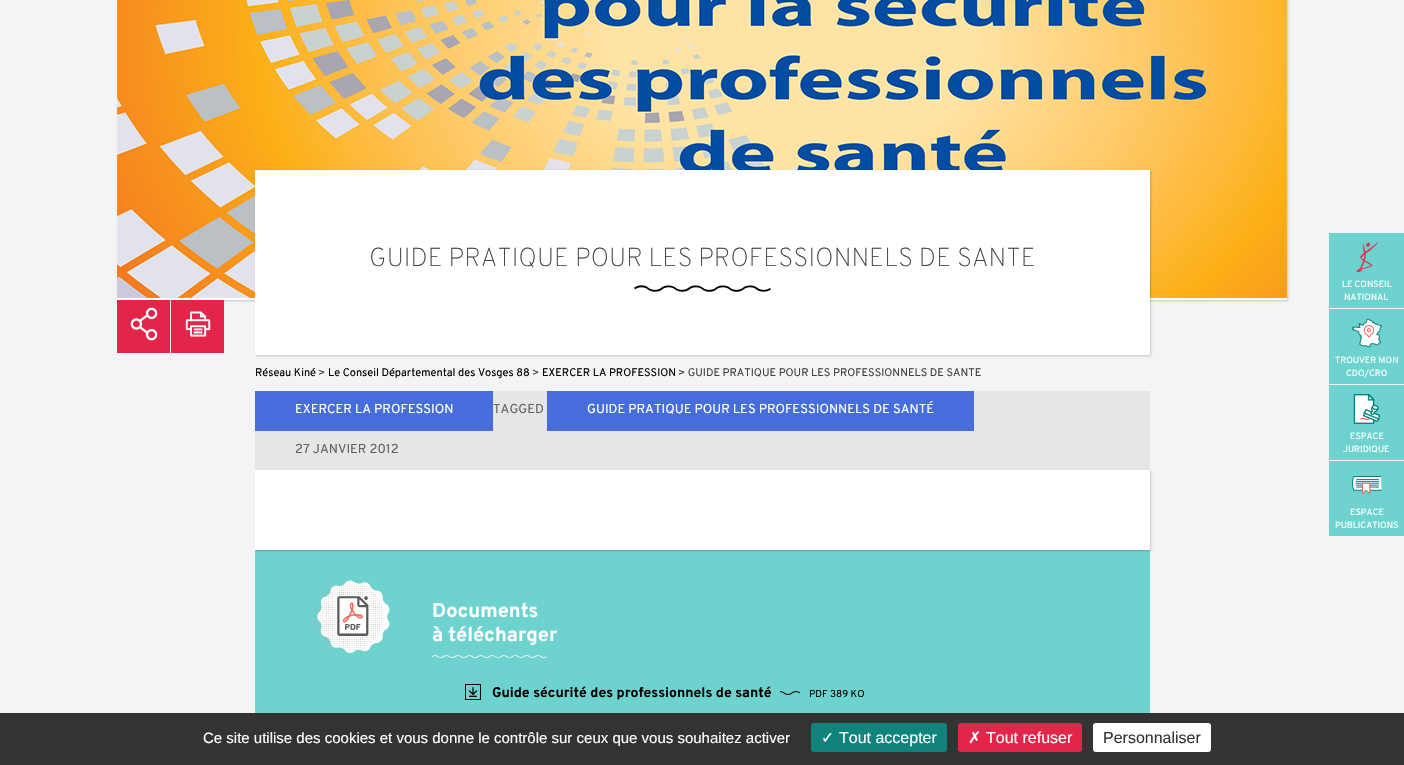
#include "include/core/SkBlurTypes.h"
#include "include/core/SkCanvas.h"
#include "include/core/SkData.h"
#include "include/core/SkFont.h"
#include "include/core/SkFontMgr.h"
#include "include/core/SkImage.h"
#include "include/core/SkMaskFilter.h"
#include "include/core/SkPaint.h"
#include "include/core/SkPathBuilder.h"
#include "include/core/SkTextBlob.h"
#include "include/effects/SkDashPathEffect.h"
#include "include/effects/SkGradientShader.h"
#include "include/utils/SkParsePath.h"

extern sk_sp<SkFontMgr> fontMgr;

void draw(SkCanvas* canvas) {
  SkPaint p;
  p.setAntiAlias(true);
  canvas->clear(SkColorSetRGB(242, 244, 246));
  p.setColor(SkColorSetARGB(51, 0, 0, 0));
  p.setMaskFilter(SkMaskFilter::MakeBlur(kNormal_SkBlurStyle, 1));
  canvas->drawRect(SkRect::MakeLTRB(118, -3, 1288, 301), p);
  p.setMaskFilter(nullptr);
  canvas->drawImageRect(SkImages::DeferredFromEncodedData(SkData::MakeFromFileName("images/1.png")), SkRect::MakeLTRB(117, 0, 1287, 300), SkSamplingOptions());
  p.setMaskFilter(SkMaskFilter::MakeBlur(kNormal_SkBlurStyle, 1));
  canvas->drawRect(SkRect::MakeLTRB(256, 171, 1151, 356), p);
  p.setMaskFilter(nullptr);
  p.setColor(SK_ColorWHITE);
  canvas->drawRect(SkRect::MakeLTRB(255, 170, 1150, 355), p);
  canvas->drawImageRect(SkImages::DeferredFromEncodedData(SkData::MakeFromFileName("images/2.png")), SkRect::MakeLTRB(634, 285, 771, 292), SkSamplingOptions());
  p.setColor(SkColorSetRGB(228, 37, 74));
  canvas->drawRect(SkRect::MakeLTRB(117, 300, 170, 353), p);
  canvas->drawImageRect(SkImages::DeferredFromEncodedData(SkData::MakeFromFileName("images/3.png")), SkRect::MakeLTRB(130, 307, 158, 341), SkSamplingOptions());
  canvas->drawRect(SkRect::MakeLTRB(171, 300, 224, 353), p);
  canvas->drawImageRect(SkImages::DeferredFromEncodedData(SkData::MakeFromFileName("images/4.png")), SkRect::MakeLTRB(185, 311, 211, 337), SkSamplingOptions());
  p.setColor(SkColorSetRGB(228, 230, 232));
  canvas->drawRect(SkRect::MakeLTRB(255, 391, 1150, 470), p);
  p.setColor(SkColorSetRGB(70, 109, 219));
  canvas->drawRect(SkRect::MakeLTRB(255, 391, 493, 431), p);
  canvas->drawRect(SkRect::MakeLTRB(547, 391, 974, 431), p);
  p.setColor(SkColorSetRGB(110, 211, 207));
  canvas->drawRect(SkRect::MakeLTRB(255, 550, 1150, 713), p);
  p.setColor(SkColorSetARGB(51, 0, 0, 0));
  p.setMaskFilter(SkMaskFilter::MakeBlur(kNormal_SkBlurStyle, 1));
  canvas->drawRect(SkRect::MakeLTRB(256, 471, 1151, 551), p);
  p.setMaskFilter(nullptr);
  p.setColor(SK_ColorWHITE);
  canvas->drawRect(SkRect::MakeLTRB(255, 470, 1150, 550), p);
  canvas->drawImageRect(SkImages::DeferredFromEncodedData(SkData::MakeFromFileName("images/5.png")), SkRect::MakeLTRB(311, 580, 390, 653), SkSamplingOptions());
  canvas->drawImageRect(SkImages::DeferredFromEncodedData(SkData::MakeFromFileName("images/6.png")), SkRect::MakeLTRB(432, 655, 547, 658), SkSamplingOptions());
  canvas->drawImageRect(SkImages::DeferredFromEncodedData(SkData::MakeFromFileName("images/7.png")), SkRect::MakeLTRB(465, 684, 481, 700), SkSamplingOptions());
  canvas->drawImageRect(SkImages::DeferredFromEncodedData(SkData::MakeFromFileName("images/8.png")), SkRect::MakeLTRB(780, 691, 800, 695), SkSamplingOptions());
  p.setColor(SkColorSetRGB(110, 211, 207));
  canvas->drawRect(SkRect::MakeLTRB(1329, 233, 1404, 308), p);
  canvas->drawImageRect(SkImages::DeferredFromEncodedData(SkData::MakeFromFileName("images/9.png")), SkRect::MakeLTRB(1356, 242, 1378, 272), SkSamplingOptions());
  canvas->drawRect(SkRect::MakeLTRB(1329, 309, 1404, 384), p);
  canvas->drawImageRect(SkImages::DeferredFromEncodedData(SkData::MakeFromFileName("images/10.png")), SkRect::MakeLTRB(1352, 318, 1382, 348), SkSamplingOptions());
  canvas->drawRect(SkRect::MakeLTRB(1329, 385, 1404, 460), p);
  canvas->drawImageRect(SkImages::DeferredFromEncodedData(SkData::MakeFromFileName("images/11.png")), SkRect::MakeLTRB(1353, 394, 1381, 424), SkSamplingOptions());
  canvas->drawRect(SkRect::MakeLTRB(1329, 461, 1404, 536), p);
  canvas->drawImageRect(SkImages::DeferredFromEncodedData(SkData::MakeFromFileName("images/12.png")), SkRect::MakeLTRB(1352, 476, 1382, 494), SkSamplingOptions());
  p.setColor(SkColorSetRGB(51, 51, 51));
  canvas->drawRect(SkRect::MakeLTRB(0, 713, 1404, 765), p);
  p.setColor(SkColorSetRGB(15, 131, 124));
  canvas->drawRoundRect(SkRect::MakeLTRB(811, 723, 947, 752), 3, 3, p);
  p.setColor(SkColorSetRGB(228, 37, 74));
  canvas->drawRoundRect(SkRect::MakeLTRB(958, 723, 1082, 752), 3, 3, p);
  p.setColor(SK_ColorWHITE);
  canvas->drawRoundRect(SkRect::MakeLTRB(1093, 723, 1211, 752), 3, 3, p);
  SkFont font1(fontMgr->matchFamilyStyle("Overpass", SkFontStyle(100, SkFontStyle::kNormal_Width, SkFontStyle::kUpright_Slant)), 26);
  font1.setSubpixel(true);
  p.setColor(SkColorSetRGB(64, 64, 64));
  canvas->drawString("GUIDE PRATIQUE POUR LES PROFESSIONNELS DE SANTE", 369, 266, font1, p);
  SkFont font2(fontMgr->matchFamilyStyle("Overpass", SkFontStyle::Normal()), 11);
  font2.setSubpixel(true);
  p.setColor(SK_ColorBLACK);
  canvas->drawString("Réseau Kiné", 255, 376, font2, p);
  p.setColor(SkColorSetRGB(64, 64, 64));
  canvas->drawString(">", 318, 376, font2, p);
  p.setColor(SK_ColorBLACK);
  canvas->drawString("Le Conseil Départemental des Vosges 88", 328, 376, font2, p);
  p.setColor(SkColorSetRGB(64, 64, 64));
  canvas->drawString(">", 532, 376, font2, p);
  p.setColor(SK_ColorBLACK);
  canvas->drawString("EXERCER LA PROFESSION", 542, 376, font2, p);
  p.setColor(SkColorSetRGB(64, 64, 64));
  canvas->drawString("> GUIDE PRATIQUE POUR LES PROFESSIONNELS DE SANTE", 678, 376, font2, p);
  SkFont font3(fontMgr->matchFamilyStyle("Overpass", SkFontStyle::Normal()), 13);
  font3.setSubpixel(true);
  p.setColor(SK_ColorWHITE);
  canvas->drawString("EXERCER LA PROFESSION", 295, 413, font3, p);
  p.setColor(SkColorSetRGB(98, 98, 98));
  canvas->drawString("TAGGED", 493, 413, font3, p);
  p.setColor(SK_ColorWHITE);
  canvas->drawString("GUIDE PRATIQUE POUR LES PROFESSIONNELS DE SANTÉ", 587, 413, font3, p);
  p.setColor(SkColorSetRGB(98, 98, 98));
  canvas->drawString("27 JANVIER 2012", 295, 453, font3, p);
  SkFont font4(fontMgr->matchFamilyStyle("Overpass", SkFontStyle::Bold()), 20);
  font4.setSubpixel(true);
  p.setColor(SK_ColorWHITE);
  canvas->drawString("Documents", 432, 617, font4, p);
  canvas->drawString("à télécharger", 432, 641, font4, p);
  SkFont font5(fontMgr->matchFamilyStyle("Overpass", SkFontStyle::Bold()), 14);
  font5.setSubpixel(true);
  p.setColor(SK_ColorBLACK);
  canvas->drawString("Guide sécurité des professionnels de santé", 492, 697, font5, p);
  SkFont font6(fontMgr->matchFamilyStyle("Overpass", SkFontStyle::Normal()), 10);
  font6.setSubpixel(true);
  canvas->drawString("PDF 389 KO", 809, 697, font6, p);
  SkFont font7(fontMgr->matchFamilyStyle("Overpass", SkFontStyle::Normal()), 9);
  font7.setSubpixel(true);
  p.setColor(SK_ColorWHITE);
  canvas->drawString("LE CONSEIL", 1342, 287, font7, p);
  canvas->drawString("NATIONAL", 1344, 300, font7, p);
  canvas->drawString("TROUVER MON", 1335, 363, font7, p);
  canvas->drawString("CDO/CRO", 1346, 376, font7, p);
  canvas->drawString("ESPACE", 1350, 439, font7, p);
  canvas->drawString("JURIDIQUE", 1343, 452, font7, p);
  canvas->drawString("ESPACE", 1350, 515, font7, p);
  canvas->drawString("PUBLICATIONS", 1335, 528, font7, p);
  SkFont font8(fontMgr->matchFamilyStyle("Liberation Sans", SkFontStyle::Normal()), 15);
  font8.setSubpixel(true);
  canvas->drawString("Ce site utilise des cookies et vous donne le contrôle sur ceux que vous souhaitez activer", 203, 743, font8, p);
  SkFont font9(fontMgr->matchFamilyStyle("DejaVu Sans", SkFontStyle::Normal()), 16);
  font9.setSubpixel(true);
  canvas->drawString("✓", 821, 743, font9, p);
  SkFont font10(fontMgr->matchFamilyStyle("Liberation Sans", SkFontStyle::Normal()), 16);
  font10.setSubpixel(true);
  canvas->drawString("Tout accepter", 839, 743, font10, p);
  canvas->drawString("✗", 968, 743, font9, p);
  canvas->drawString("Tout refuser", 986, 743, font10, p);
  p.setColor(SkColorSetRGB(51, 51, 51));
  canvas->drawString("Personnaliser", 1103, 743, font10, p);
}
